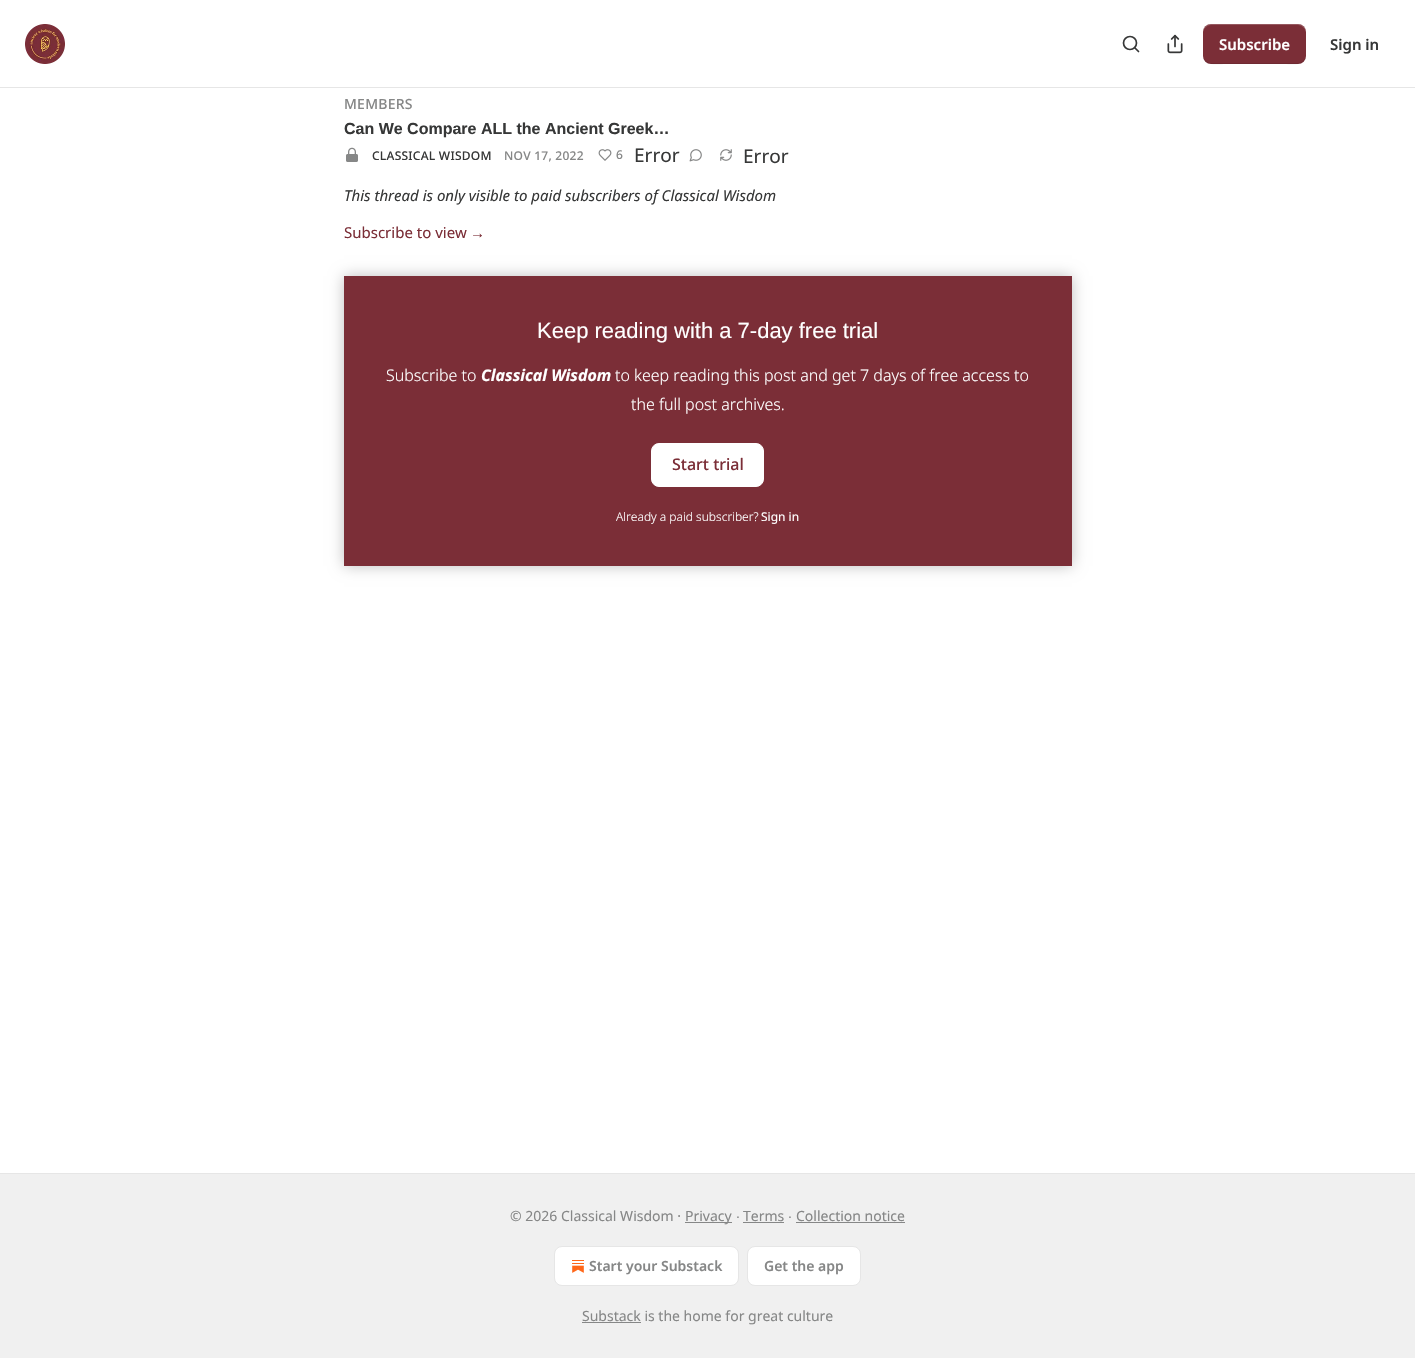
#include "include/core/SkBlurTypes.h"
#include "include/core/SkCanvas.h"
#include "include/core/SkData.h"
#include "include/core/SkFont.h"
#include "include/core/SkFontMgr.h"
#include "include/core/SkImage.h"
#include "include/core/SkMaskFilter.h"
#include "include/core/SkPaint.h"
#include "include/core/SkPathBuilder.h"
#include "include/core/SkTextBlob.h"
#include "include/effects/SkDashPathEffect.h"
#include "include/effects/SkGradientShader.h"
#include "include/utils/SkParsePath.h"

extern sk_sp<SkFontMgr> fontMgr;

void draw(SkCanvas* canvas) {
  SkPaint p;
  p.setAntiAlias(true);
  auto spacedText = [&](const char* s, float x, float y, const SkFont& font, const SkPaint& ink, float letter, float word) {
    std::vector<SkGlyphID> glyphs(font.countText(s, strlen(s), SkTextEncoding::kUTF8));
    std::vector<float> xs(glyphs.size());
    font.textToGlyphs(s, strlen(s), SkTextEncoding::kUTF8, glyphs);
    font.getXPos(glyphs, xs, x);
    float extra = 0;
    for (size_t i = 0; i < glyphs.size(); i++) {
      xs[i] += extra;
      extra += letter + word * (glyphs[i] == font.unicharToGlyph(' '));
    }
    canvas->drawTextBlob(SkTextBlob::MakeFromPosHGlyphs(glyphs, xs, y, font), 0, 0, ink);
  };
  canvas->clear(SK_ColorWHITE);
  p.setColor(SkColorSetRGB(230, 230, 230));
  canvas->drawRect(SkRect::MakeLTRB(0, 87, 1415, 88), p);
  canvas->drawImageRect(SkImages::DeferredFromEncodedData(SkData::MakeFromFileName("images/1.png")), SkRect::MakeLTRB(25, 24, 65, 64), SkSamplingOptions());
  p.setStyle(SkPaint::kStroke_Style);
  p.setStrokeWidth(1.7f);
  p.setColor(SkColorSetRGB(54, 55, 55));
  canvas->drawCircle(1130, 43, 6.5f, p);
  p.setStrokeCap(SkPaint::kRound_Cap);
  p.setStrokeJoin(SkPaint::kRound_Join);
  canvas->drawPath(SkPathBuilder().moveTo(1138.5f, 51.5f).lineTo(1135, 48).detach(), p);
  canvas->drawImageRect(SkImages::DeferredFromEncodedData(SkData::MakeFromFileName("images/2.png")), SkRect::MakeLTRB(1167, 34, 1183, 54), SkSamplingOptions());
  p.setStyle(SkPaint::kFill_Style);
  p.setColor(SkColorSetRGB(123, 46, 55));
  canvas->drawRoundRect(SkRect::MakeLTRB(1203, 24, 1306, 64), 8, 8, p);
  p.setColor(SkColorSetARGB(26, 0, 0, 0));
  canvas->drawPath(SkPathBuilder().moveTo(1203, 55).cubicTo(1203, 67, 1217, 64, 1226, 64).lineTo(1284, 64).cubicTo(1292, 64, 1306, 67, 1306, 55).cubicTo(1306, 59, 1302, 63, 1298, 63).lineTo(1211, 63).cubicTo(1207, 63, 1203, 59, 1203, 55).close().detach(), p);
  p.setColor(SkColorSetARGB(51, 255, 255, 255));
  canvas->drawPath(SkPathBuilder().moveTo(1211, 25).lineTo(1298, 25).cubicTo(1302, 25, 1306, 29, 1306, 33).cubicTo(1306, 21, 1292, 24, 1284, 24).lineTo(1226, 24).cubicTo(1217, 24, 1203, 21, 1203, 33).cubicTo(1203, 29, 1207, 25, 1211, 25).close().detach(), p);
  canvas->drawImageRect(SkImages::DeferredFromEncodedData(SkData::MakeFromFileName("images/3.png")), SkRect::MakeLTRB(346, 147, 358, 162), SkSamplingOptions());
  canvas->drawImageRect(SkImages::DeferredFromEncodedData(SkData::MakeFromFileName("images/4.png")), SkRect::MakeLTRB(598, 149, 612, 161), SkSamplingOptions());
  canvas->drawImageRect(SkImages::DeferredFromEncodedData(SkData::MakeFromFileName("images/5.png")), SkRect::MakeLTRB(689, 149, 702, 162), SkSamplingOptions());
  canvas->drawImageRect(SkImages::DeferredFromEncodedData(SkData::MakeFromFileName("images/6.png")), SkRect::MakeLTRB(720, 149, 732, 161), SkSamplingOptions());
  p.setColor(SkColorSetRGB(123, 46, 55));
  canvas->drawRect(SkRect::MakeLTRB(344, 276, 1072, 566), p);
  p.setColor(SK_ColorWHITE);
  canvas->drawRoundRect(SkRect::MakeLTRB(651.5f, 443.5f, 763.5f, 486.5f), 7.5f, 7.5f, p);
  p.setStyle(SkPaint::kStroke_Style);
  p.setStrokeWidth(1);
  p.setStrokeCap(SkPaint::kButt_Cap);
  p.setStrokeJoin(SkPaint::kMiter_Join);
  canvas->drawRoundRect(SkRect::MakeLTRB(651.5f, 443.5f, 763.5f, 486.5f), 7.5f, 7.5f, p);
  canvas->save();
  canvas->clipPath(SkPathBuilder(SkPathFillType::kEvenOdd).moveTo(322, 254).lineTo(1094, 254).lineTo(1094, 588).lineTo(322, 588).close().moveTo(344, 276).lineTo(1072, 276).lineTo(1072, 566).lineTo(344, 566).close().detach(), true);
  p.setStyle(SkPaint::kFill_Style);
  p.setColor(SkColorSetARGB(64, 0, 0, 0));
  p.setMaskFilter(SkMaskFilter::MakeBlur(kNormal_SkBlurStyle, 7));
  canvas->drawRect(SkRect::MakeLTRB(344, 276, 1072, 566), p);
  p.setMaskFilter(nullptr);
  canvas->restore();
  p.setColor(SkColorSetRGB(240, 240, 240));
  canvas->drawRect(SkRect::MakeLTRB(0, 1174, 1415, 1358), p);
  p.setColor(SkColorSetRGB(230, 230, 230));
  canvas->drawRect(SkRect::MakeLTRB(0, 1173, 1415, 1174), p);
  p.setColor(SkColorSetRGB(134, 135, 135));
  canvas->drawRect(SkRect::MakeLTRB(685, 1222, 732, 1223), p);
  canvas->drawRect(SkRect::MakeLTRB(743, 1222, 784, 1223), p);
  canvas->drawRect(SkRect::MakeLTRB(796, 1222, 905, 1223), p);
  p.setColor(SK_ColorWHITE);
  canvas->drawRoundRect(SkRect::MakeLTRB(554.5f, 1246.5f, 738.5f, 1285.5f), 7.5f, 7.5f, p);
  p.setStyle(SkPaint::kStroke_Style);
  p.setColor(SkColorSetRGB(230, 230, 230));
  canvas->drawRoundRect(SkRect::MakeLTRB(554.5f, 1246.5f, 738.5f, 1285.5f), 7.5f, 7.5f, p);
  canvas->drawImageRect(SkImages::DeferredFromEncodedData(SkData::MakeFromFileName("images/7.png")), SkRect::MakeLTRB(572, 1260, 584, 1273), SkSamplingOptions());
  p.setStyle(SkPaint::kFill_Style);
  p.setColor(SK_ColorWHITE);
  canvas->drawRoundRect(SkRect::MakeLTRB(747.5f, 1246.5f, 860.5f, 1285.5f), 7.5f, 7.5f, p);
  p.setStyle(SkPaint::kStroke_Style);
  p.setColor(SkColorSetRGB(230, 230, 230));
  canvas->drawRoundRect(SkRect::MakeLTRB(747.5f, 1246.5f, 860.5f, 1285.5f), 7.5f, 7.5f, p);
  p.setStyle(SkPaint::kFill_Style);
  p.setColor(SkColorSetRGB(134, 135, 135));
  canvas->drawRect(SkRect::MakeLTRB(582, 1322, 641, 1323), p);
  SkFont font1(fontMgr->matchFamilyStyle("Noto Sans", SkFontStyle(600, SkFontStyle::kNormal_Width, SkFontStyle::kUpright_Slant)), 15);
  font1.setSubpixel(true);
  p.setColor(SK_ColorWHITE);
  canvas->drawString("Subscribe", 1219, 50, font1, p);
  p.setColor(SkColorSetRGB(54, 55, 55));
  canvas->drawString("Sign in", 1330, 50, font1, p);
  SkFont font2(fontMgr->matchFamilyStyle("Noto Sans", SkFontStyle(500, SkFontStyle::kNormal_Width, SkFontStyle::kUpright_Slant)), 14);
  font2.setSubpixel(true);
  p.setColor(SkColorSetRGB(134, 135, 135));
  spacedText("MEMBERS", 344, 109, font2, p, 0.25f, 0);
  SkFont font3(fontMgr->matchFamilyStyle("Liberation Sans", SkFontStyle::Bold()), 16);
  font3.setSubpixel(true);
  p.setColor(SkColorSetRGB(54, 55, 55));
  canvas->drawString("Can We Compare ALL the Ancient Greek…", 344, 134, font3, p);
  SkFont font4(fontMgr->matchFamilyStyle("Noto Sans", SkFontStyle(500, SkFontStyle::kNormal_Width, SkFontStyle::kUpright_Slant)), 12);
  font4.setSubpixel(true);
  spacedText("CLASSICAL WISDOM", 372, 160, font4, p, 0.25f, 0);
  p.setColor(SkColorSetRGB(134, 135, 135));
  spacedText("NOV 17, 2022", 504, 160, font4, p, 0.25f, 0);
  spacedText("6", 616, 159, font4, p, 0.25f, 0);
  SkFont font5(fontMgr->matchFamilyStyle("Noto Sans", SkFontStyle::Normal()), 19);
  font5.setSubpixel(true);
  p.setColor(SkColorSetRGB(54, 55, 55));
  canvas->drawString("Error", 634, 162, font5, p);
  canvas->drawString("Error", 743, 163, font5, p);
  SkFont font6(fontMgr->matchFamilyStyle("Noto Sans", SkFontStyle::Italic()), 15);
  font6.setSubpixel(true);
  canvas->drawString("This thread is only visible to paid subscribers of Classical Wisdom", 344, 201, font6, p);
  SkFont font7(fontMgr->matchFamilyStyle("Noto Sans", SkFontStyle::Normal()), 15);
  font7.setSubpixel(true);
  p.setColor(SkColorSetRGB(123, 46, 55));
  canvas->drawString("Subscribe to view", 344, 238, font7, p);
  SkFont font8(fontMgr->matchFamilyStyle("Liberation Sans", SkFontStyle::Normal()), 15);
  font8.setSubpixel(true);
  canvas->drawString("→", 470, 238, font8, p);
  SkFont font9(fontMgr->matchFamilyStyle("Liberation Sans", SkFontStyle::Normal()), 22);
  font9.setSubpixel(true);
  p.setColor(SK_ColorWHITE);
  canvas->drawString("Keep reading with a 7-day free trial", 537, 338, font9, p);
  SkFont font10(fontMgr->matchFamilyStyle("Noto Sans", SkFontStyle(300, SkFontStyle::kNormal_Width, SkFontStyle::kUpright_Slant)), 16);
  font10.setSubpixel(true);
  canvas->drawString("Subscribe to", 386, 381, font10, p);
  SkFont font11(fontMgr->matchFamilyStyle("Noto Sans", SkFontStyle::BoldItalic()), 16);
  font11.setSubpixel(true);
  canvas->drawString("Classical Wisdom", 481, 381, font11, p);
  canvas->drawString("to keep reading this post and get 7 days of free access to", 615, 381, font10, p);
  canvas->drawString("the full post archives.", 631, 410, font10, p);
  SkFont font12(fontMgr->matchFamilyStyle("Noto Sans", SkFontStyle(500, SkFontStyle::kNormal_Width, SkFontStyle::kUpright_Slant)), 16);
  font12.setSubpixel(true);
  p.setColor(SkColorSetRGB(123, 46, 55));
  canvas->drawString("Start trial", 672, 470, font12, p);
  SkFont font13(fontMgr->matchFamilyStyle("Noto Sans", SkFontStyle(300, SkFontStyle::kNormal_Width, SkFontStyle::kUpright_Slant)), 12);
  font13.setSubpixel(true);
  p.setColor(SK_ColorWHITE);
  canvas->drawString("Already a paid subscriber?", 616, 521, font13, p);
  SkFont font14(fontMgr->matchFamilyStyle("Noto Sans", SkFontStyle::Normal()), 12);
  font14.setSubpixel(true);
  canvas->drawString("Sign in", 761, 521, font14, p);
  SkFont font15(fontMgr->matchFamilyStyle("Noto Sans", SkFontStyle::Normal()), 14);
  font15.setSubpixel(true);
  p.setColor(SkColorSetRGB(134, 135, 135));
  canvas->drawString("© 2026 Classical Wisdom ·", 510, 1221, font15, p);
  canvas->drawString("Privacy", 685, 1221, font15, p);
  SkFont font16(fontMgr->matchFamilyStyle("Liberation Sans", SkFontStyle::Normal()), 14);
  font16.setSubpixel(true);
  canvas->drawString("∙", 736, 1221, font16, p);
  canvas->drawString("Terms", 743, 1221, font15, p);
  canvas->drawString("∙", 788, 1221, font16, p);
  canvas->drawString("Collection notice", 796, 1221, font15, p);
  SkFont font17(fontMgr->matchFamilyStyle("Noto Sans", SkFontStyle(600, SkFontStyle::kNormal_Width, SkFontStyle::kUpright_Slant)), 14);
  font17.setSubpixel(true);
  canvas->drawString("Start your Substack", 589, 1271, font17, p);
  canvas->drawString("Get the app", 764, 1271, font17, p);
  canvas->drawString("Substack is the home for great culture", 582, 1321, font15, p);
}
